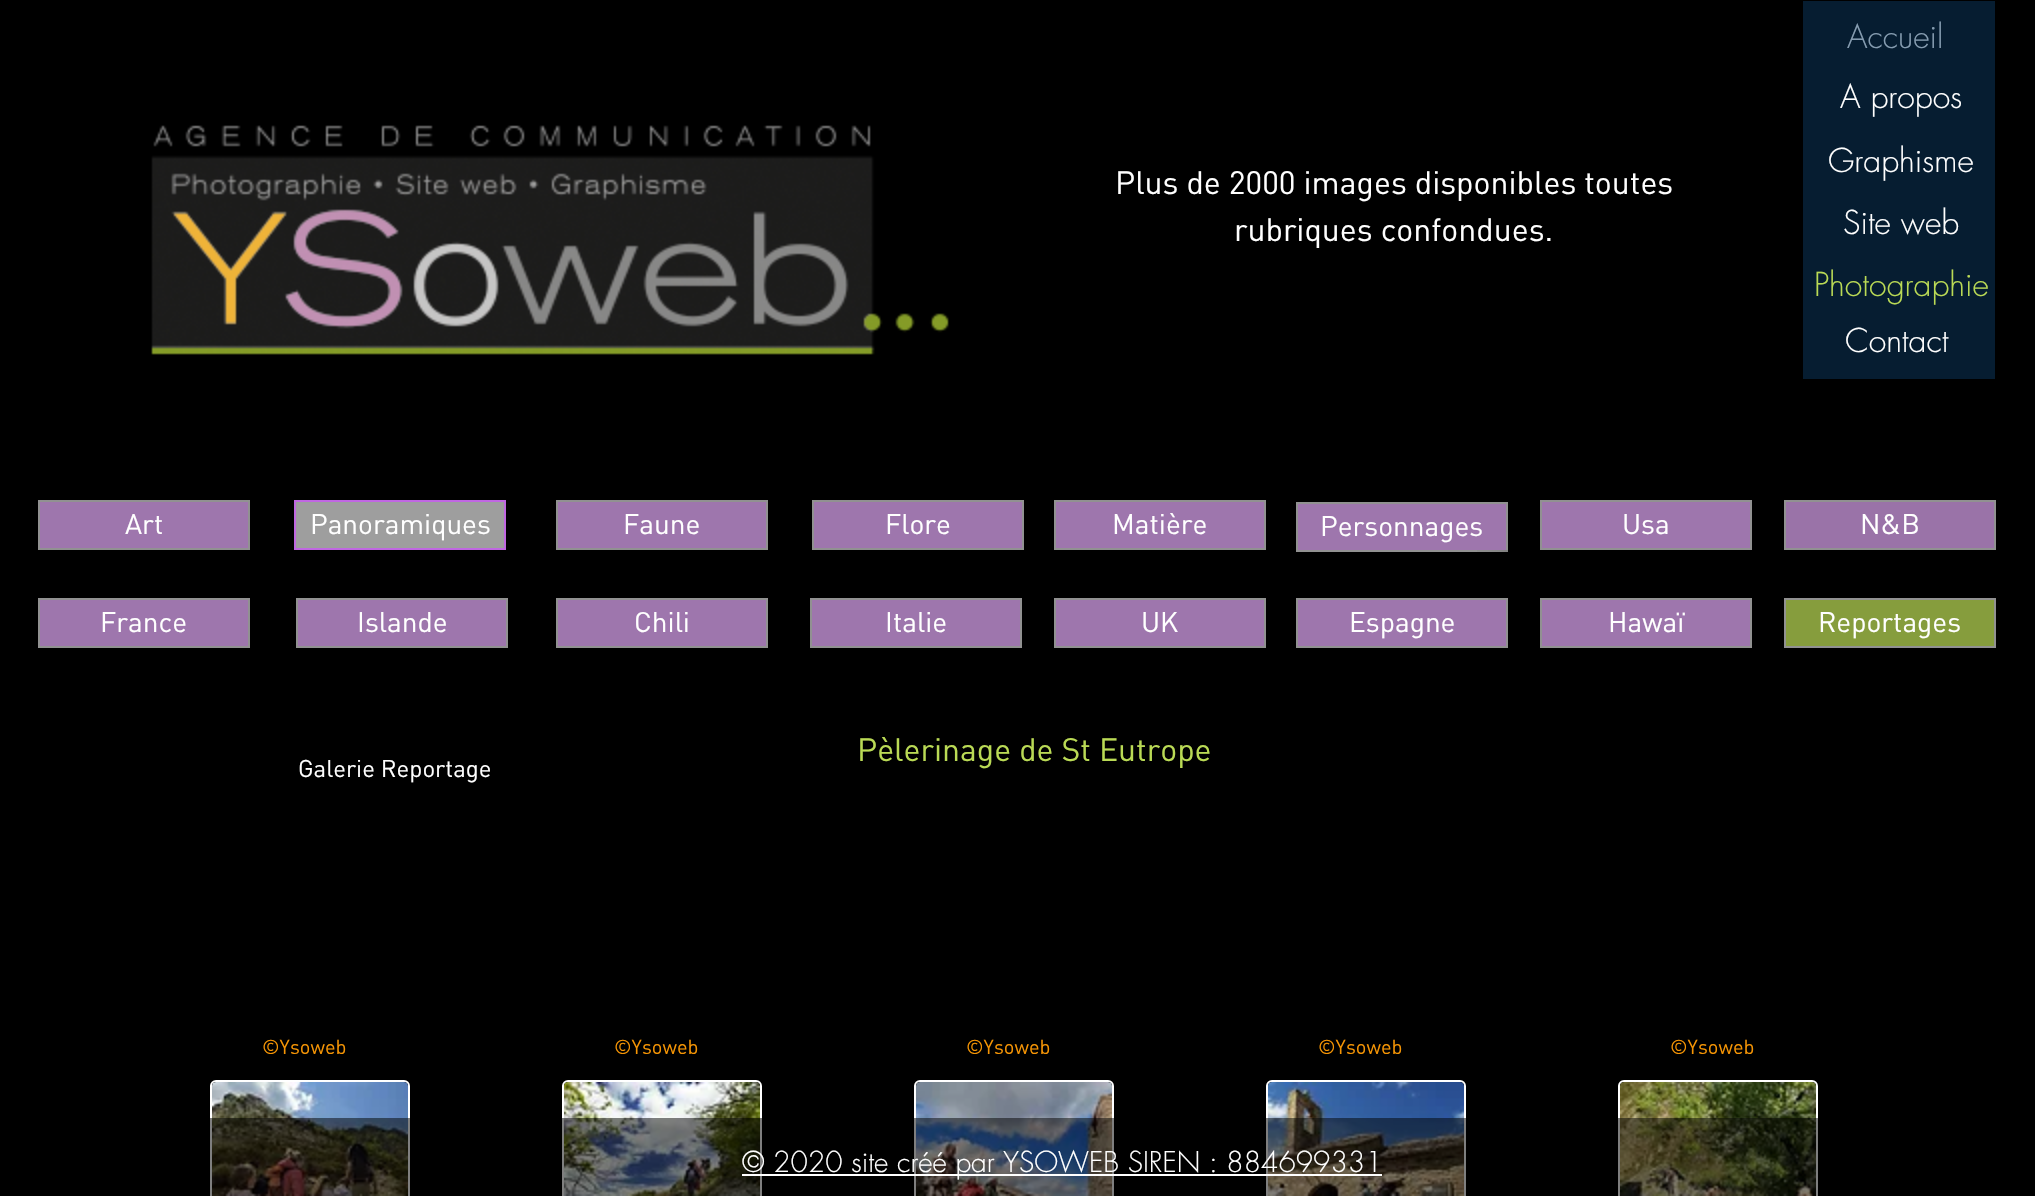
#include "include/core/SkBlurTypes.h"
#include "include/core/SkCanvas.h"
#include "include/core/SkData.h"
#include "include/core/SkFont.h"
#include "include/core/SkFontMgr.h"
#include "include/core/SkImage.h"
#include "include/core/SkMaskFilter.h"
#include "include/core/SkPaint.h"
#include "include/core/SkPathBuilder.h"
#include "include/core/SkTextBlob.h"
#include "include/effects/SkDashPathEffect.h"
#include "include/effects/SkGradientShader.h"
#include "include/utils/SkParsePath.h"

extern sk_sp<SkFontMgr> fontMgr;

void draw(SkCanvas* canvas) {
  SkPaint p;
  p.setAntiAlias(true);
  canvas->clear(SK_ColorBLACK);
  p.setColor(SkColorSetRGB(6, 29, 49));
  canvas->drawRect(SkRect::MakeLTRB(1803, 1, 1995, 379), p);
  canvas->drawImageRect(SkImages::DeferredFromEncodedData(SkData::MakeFromFileName("images/1.png")), SkRect::MakeLTRB(151, 125, 949, 355), SkSamplingOptions());
  p.setColor(SkColorSetRGB(158, 118, 173));
  canvas->drawRect(SkRect::MakeLTRB(39, 501, 249, 549), p);
  p.setStyle(SkPaint::kStroke_Style);
  p.setStrokeWidth(2);
  p.setColor(SkColorSetRGB(145, 145, 145));
  canvas->drawRect(SkRect::MakeLTRB(39, 501, 249, 549), p);
  p.setStyle(SkPaint::kFill_Style);
  p.setColor(SkColorSetRGB(158, 158, 158));
  canvas->drawRect(SkRect::MakeLTRB(295, 501, 505, 549), p);
  p.setStyle(SkPaint::kStroke_Style);
  p.setColor(SkColorSetRGB(192, 103, 226));
  canvas->drawRect(SkRect::MakeLTRB(295, 501, 505, 549), p);
  p.setStyle(SkPaint::kFill_Style);
  p.setColor(SkColorSetRGB(158, 118, 173));
  canvas->drawRect(SkRect::MakeLTRB(557, 501, 767, 549), p);
  p.setStyle(SkPaint::kStroke_Style);
  p.setColor(SkColorSetRGB(145, 145, 145));
  canvas->drawRect(SkRect::MakeLTRB(557, 501, 767, 549), p);
  p.setStyle(SkPaint::kFill_Style);
  p.setColor(SkColorSetRGB(158, 118, 173));
  canvas->drawRect(SkRect::MakeLTRB(813, 501, 1023, 549), p);
  p.setStyle(SkPaint::kStroke_Style);
  p.setColor(SkColorSetRGB(145, 145, 145));
  canvas->drawRect(SkRect::MakeLTRB(813, 501, 1023, 549), p);
  p.setStyle(SkPaint::kFill_Style);
  p.setColor(SkColorSetRGB(158, 118, 173));
  canvas->drawRect(SkRect::MakeLTRB(1055, 501, 1265, 549), p);
  p.setStyle(SkPaint::kStroke_Style);
  p.setColor(SkColorSetRGB(145, 145, 145));
  canvas->drawRect(SkRect::MakeLTRB(1055, 501, 1265, 549), p);
  p.setStyle(SkPaint::kFill_Style);
  p.setColor(SkColorSetRGB(158, 118, 173));
  canvas->drawRect(SkRect::MakeLTRB(1297, 503, 1507, 551), p);
  p.setStyle(SkPaint::kStroke_Style);
  p.setColor(SkColorSetRGB(145, 145, 145));
  canvas->drawRect(SkRect::MakeLTRB(1297, 503, 1507, 551), p);
  p.setStyle(SkPaint::kFill_Style);
  p.setColor(SkColorSetRGB(158, 118, 173));
  canvas->drawRect(SkRect::MakeLTRB(1541, 501, 1751, 549), p);
  p.setStyle(SkPaint::kStroke_Style);
  p.setColor(SkColorSetRGB(145, 145, 145));
  canvas->drawRect(SkRect::MakeLTRB(1541, 501, 1751, 549), p);
  canvas->drawImageRect(SkImages::DeferredFromEncodedData(SkData::MakeFromFileName("images/2.png")), SkRect::MakeLTRB(1477, 550, 1508, 552), SkSamplingOptions());
  p.setStyle(SkPaint::kFill_Style);
  p.setColor(SkColorSetRGB(154, 115, 168));
  canvas->drawRect(SkRect::MakeLTRB(1785, 501, 1995, 549), p);
  p.setStyle(SkPaint::kStroke_Style);
  p.setColor(SkColorSetRGB(145, 145, 145));
  canvas->drawRect(SkRect::MakeLTRB(1785, 501, 1995, 549), p);
  p.setStyle(SkPaint::kFill_Style);
  p.setColor(SkColorSetRGB(158, 118, 173));
  canvas->drawRect(SkRect::MakeLTRB(39, 599, 249, 647), p);
  p.setStyle(SkPaint::kStroke_Style);
  p.setColor(SkColorSetRGB(145, 145, 145));
  canvas->drawRect(SkRect::MakeLTRB(39, 599, 249, 647), p);
  p.setStyle(SkPaint::kFill_Style);
  p.setColor(SkColorSetRGB(158, 118, 173));
  canvas->drawRect(SkRect::MakeLTRB(297, 599, 507, 647), p);
  p.setStyle(SkPaint::kStroke_Style);
  p.setColor(SkColorSetRGB(145, 145, 145));
  canvas->drawRect(SkRect::MakeLTRB(297, 599, 507, 647), p);
  p.setStyle(SkPaint::kFill_Style);
  p.setColor(SkColorSetRGB(158, 118, 173));
  canvas->drawRect(SkRect::MakeLTRB(557, 599, 767, 647), p);
  p.setStyle(SkPaint::kStroke_Style);
  p.setColor(SkColorSetRGB(145, 145, 145));
  canvas->drawRect(SkRect::MakeLTRB(557, 599, 767, 647), p);
  p.setStyle(SkPaint::kFill_Style);
  p.setColor(SkColorSetRGB(158, 118, 173));
  canvas->drawRect(SkRect::MakeLTRB(811, 599, 1021, 647), p);
  p.setStyle(SkPaint::kStroke_Style);
  p.setColor(SkColorSetRGB(145, 145, 145));
  canvas->drawRect(SkRect::MakeLTRB(811, 599, 1021, 647), p);
  p.setStyle(SkPaint::kFill_Style);
  p.setColor(SkColorSetRGB(158, 118, 173));
  canvas->drawRect(SkRect::MakeLTRB(1055, 599, 1265, 647), p);
  p.setStyle(SkPaint::kStroke_Style);
  p.setColor(SkColorSetRGB(145, 145, 145));
  canvas->drawRect(SkRect::MakeLTRB(1055, 599, 1265, 647), p);
  p.setStyle(SkPaint::kFill_Style);
  p.setColor(SkColorSetRGB(158, 118, 173));
  canvas->drawRect(SkRect::MakeLTRB(1297, 599, 1507, 647), p);
  p.setStyle(SkPaint::kStroke_Style);
  p.setColor(SkColorSetRGB(145, 145, 145));
  canvas->drawRect(SkRect::MakeLTRB(1297, 599, 1507, 647), p);
  p.setStyle(SkPaint::kFill_Style);
  p.setColor(SkColorSetRGB(158, 118, 173));
  canvas->drawRect(SkRect::MakeLTRB(1541, 599, 1751, 647), p);
  p.setStyle(SkPaint::kStroke_Style);
  p.setColor(SkColorSetRGB(145, 145, 145));
  canvas->drawRect(SkRect::MakeLTRB(1541, 599, 1751, 647), p);
  p.setStyle(SkPaint::kFill_Style);
  p.setColor(SkColorSetRGB(134, 157, 61));
  canvas->drawRect(SkRect::MakeLTRB(1785, 599, 1995, 647), p);
  p.setStyle(SkPaint::kStroke_Style);
  p.setColor(SkColorSetRGB(145, 145, 145));
  canvas->drawRect(SkRect::MakeLTRB(1785, 599, 1995, 647), p);
  p.setColor(SK_ColorWHITE);
  canvas->drawRoundRect(SkRect::MakeLTRB(211, 1081, 409, 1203), 5, 5, p);
  canvas->drawImageRect(SkImages::DeferredFromEncodedData(SkData::MakeFromFileName("images/3.png")), SkRect::MakeLTRB(212, 1082, 408, 1196), SkSamplingOptions());
  canvas->drawRoundRect(SkRect::MakeLTRB(563, 1081, 761, 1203), 5, 5, p);
  canvas->drawImageRect(SkImages::DeferredFromEncodedData(SkData::MakeFromFileName("images/4.png")), SkRect::MakeLTRB(564, 1082, 760, 1196), SkSamplingOptions());
  canvas->drawRoundRect(SkRect::MakeLTRB(915, 1081, 1113, 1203), 5, 5, p);
  canvas->drawImageRect(SkImages::DeferredFromEncodedData(SkData::MakeFromFileName("images/5.png")), SkRect::MakeLTRB(916, 1082, 1112, 1196), SkSamplingOptions());
  canvas->drawRoundRect(SkRect::MakeLTRB(1267, 1081, 1465, 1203), 5, 5, p);
  canvas->drawImageRect(SkImages::DeferredFromEncodedData(SkData::MakeFromFileName("images/6.png")), SkRect::MakeLTRB(1268, 1082, 1464, 1196), SkSamplingOptions());
  canvas->drawRoundRect(SkRect::MakeLTRB(1619, 1081, 1817, 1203), 5, 5, p);
  canvas->drawImageRect(SkImages::DeferredFromEncodedData(SkData::MakeFromFileName("images/7.png")), SkRect::MakeLTRB(1620, 1082, 1816, 1196), SkSamplingOptions());
  p.setStyle(SkPaint::kFill_Style);
  p.setColor(SkColorSetARGB(128, 0, 0, 0));
  canvas->drawRect(SkRect::MakeLTRB(210, 1118, 1818, 1196), p);
  p.setColor(SK_ColorWHITE);
  canvas->drawRect(SkRect::MakeLTRB(742, 1174, 1382, 1176), p);
  SkFont font1(fontMgr->matchFamilyStyle("DIN", SkFontStyle::Normal()), 32);
  font1.setSubpixel(true);
  canvas->drawString("Plus de 2000 images disponibles toutes", 1115, 194, font1, p);
  canvas->drawString("rubriques confondues.", 1234, 241, font1, p);
  SkFont font2(fontMgr->matchFamilyStyle("futura", SkFontStyle(300, SkFontStyle::kNormal_Width, SkFontStyle::kUpright_Slant)), 32);
  font2.setSubpixel(true);
  p.setColor(SkColorSetRGB(133, 156, 176));
  canvas->drawString("Accueil", 1847, 48, font2, p);
  p.setColor(SK_ColorWHITE);
  canvas->drawString("A propos", 1840, 108, font2, p);
  canvas->drawString("Graphisme", 1828, 172, font2, p);
  canvas->drawString("Site web", 1843, 234, font2, p);
  p.setColor(SkColorSetRGB(186, 218, 85));
  canvas->drawString("Photographie", 1814, 296, font2, p);
  p.setColor(SK_ColorWHITE);
  canvas->drawString("Contact", 1845, 352, font2, p);
  SkFont font3(fontMgr->matchFamilyStyle("DIN", SkFontStyle::Normal()), 28);
  font3.setSubpixel(true);
  canvas->drawString("Art", 125, 534, font3, p);
  canvas->drawString("Panoramiques", 310, 534, font3, p);
  canvas->drawString("Faune", 623, 534, font3, p);
  canvas->drawString("Flore", 885, 534, font3, p);
  canvas->drawString("Matière", 1112, 534, font3, p);
  canvas->drawString("Personnages", 1320, 536, font3, p);
  canvas->drawString("Usa", 1622, 534, font3, p);
  canvas->drawString("N&B", 1860, 534, font3, p);
  canvas->drawString("France", 100, 632, font3, p);
  canvas->drawString("Islande", 357, 632, font3, p);
  canvas->drawString("Chili", 634, 632, font3, p);
  canvas->drawString("Italie", 885, 632, font3, p);
  canvas->drawString("UK", 1141, 632, font3, p);
  canvas->drawString("Espagne", 1349, 632, font3, p);
  canvas->drawString("Hawaï", 1608, 632, font3, p);
  canvas->drawString("Reportages", 1818, 632, font3, p);
  SkFont font4(fontMgr->matchFamilyStyle("DIN", SkFontStyle::Normal()), 24);
  font4.setSubpixel(true);
  canvas->drawString("Galerie Reportage", 298, 777, font4, p);
  p.setColor(SkColorSetRGB(186, 218, 85));
  canvas->drawString("Pèlerinage de St Eutrope", 857, 761, font1, p);
  SkFont font5(fontMgr->matchFamilyStyle("DIN", SkFontStyle::Normal()), 20);
  font5.setSubpixel(true);
  p.setColor(SkColorSetRGB(246, 149, 4));
  canvas->drawString("©Ysoweb", 262, 1054, font5, p);
  canvas->drawString("©Ysoweb", 614, 1054, font5, p);
  canvas->drawString("©Ysoweb", 966, 1054, font5, p);
  canvas->drawString("©Ysoweb", 1318, 1054, font5, p);
  canvas->drawString("©Ysoweb", 1670, 1054, font5, p);
  SkFont font6(fontMgr->matchFamilyStyle("futura", SkFontStyle(300, SkFontStyle::kNormal_Width, SkFontStyle::kUpright_Slant)), 28);
  font6.setSubpixel(true);
  p.setColor(SK_ColorWHITE);
  canvas->drawString("© 2020 site créé par YSOWEB SIREN : 884699331", 742, 1172, font6, p);
}
